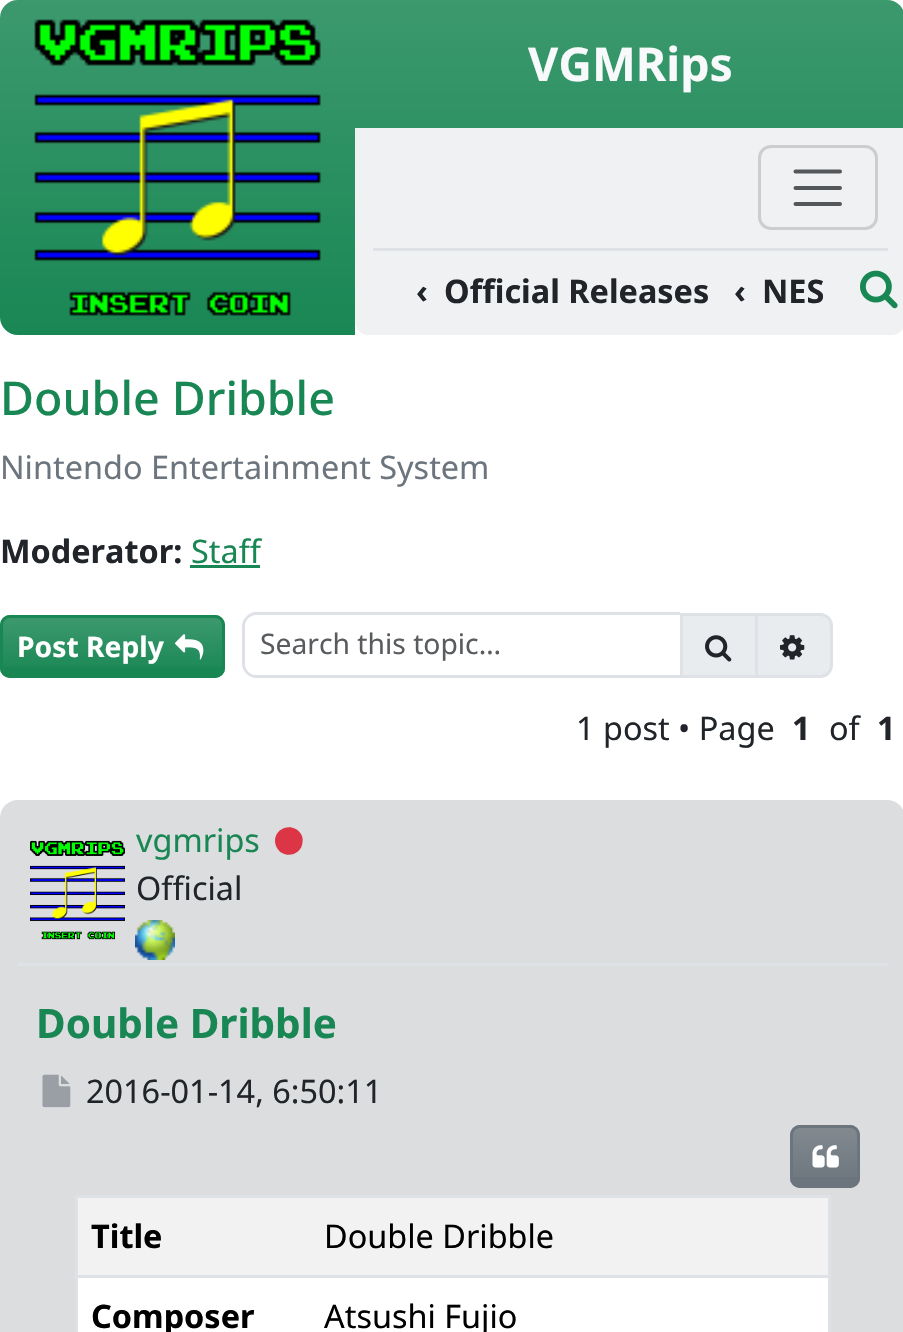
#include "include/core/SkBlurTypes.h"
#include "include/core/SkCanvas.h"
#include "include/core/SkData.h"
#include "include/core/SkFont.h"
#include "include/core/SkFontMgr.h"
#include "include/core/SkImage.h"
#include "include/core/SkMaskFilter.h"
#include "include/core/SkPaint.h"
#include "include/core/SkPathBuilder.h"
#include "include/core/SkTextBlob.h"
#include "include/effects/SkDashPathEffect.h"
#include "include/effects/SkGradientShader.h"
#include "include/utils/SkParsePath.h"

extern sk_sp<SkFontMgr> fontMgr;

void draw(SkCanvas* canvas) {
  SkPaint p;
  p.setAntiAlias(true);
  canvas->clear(SK_ColorWHITE);
  p.setColor(SkColorSetRGB(25, 135, 84));
  canvas->drawRoundRect(SkRect::MakeLTRB(0, 0, 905, 335), 18, 18, p);
  {
    const SkColor colors[] = {SkColorSetARGB(38, 255, 255, 255), SkColorSetARGB(0, 255, 255, 255)};
    const float stops[] = {0, 1};
    const SkPoint ends[] = {{453, 0}, {453, 335}};
    p.setShader(SkGradientShader::MakeLinear(ends, colors, stops, 2, SkTileMode::kClamp));
    p.setAlpha(255);
  }
  canvas->drawRoundRect(SkRect::MakeLTRB(0, 0, 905, 335), 18, 18, p);
  canvas->drawImageRect(SkImages::DeferredFromEncodedData(SkData::MakeFromFileName("images/1.png")), SkRect::MakeLTRB(34, 19, 321, 316), SkSamplingOptions());
  p.setShader(nullptr);
  p.setColor(SK_ColorWHITE);
  canvas->drawRect(SkRect::MakeLTRB(355, 322, 903, 335), p);
  p.setColor(SkColorSetRGB(240, 241, 242));
  canvas->drawRect(SkRect::MakeLTRB(355, 128, 903, 248), p);
  p.setStyle(SkPaint::kStroke_Style);
  p.setStrokeWidth(3);
  p.setColor(SkColorSetRGB(204, 205, 206));
  canvas->drawRoundRect(SkRect::MakeLTRB(759.5f, 146.5f, 876.5f, 228.5f), 11.5f, 11.5f, p);
  p.setStrokeWidth(4);
  p.setStrokeCap(SkPaint::kRound_Cap);
  p.setColor(SkColorSetRGB(85, 88, 91));
  canvas->drawPath(SkPathBuilder().moveTo(795.5f, 171.5f).lineTo(840, 171.5f).moveTo(795.5f, 188).lineTo(840, 188).moveTo(795.5f, 204).lineTo(840, 204).detach(), p);
  p.setStyle(SkPaint::kFill_Style);
  p.setColor(SkColorSetRGB(240, 241, 242));
  canvas->drawPath(SkPathBuilder().moveTo(355, 248).lineTo(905, 248).lineTo(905, 322).cubicTo(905, 329, 899, 335, 892, 335).lineTo(368, 335).cubicTo(361, 335, 355, 329, 355, 322).close().detach(), p);
  p.setColor(SkColorSetRGB(222, 226, 230));
  canvas->drawRect(SkRect::MakeLTRB(373, 248, 888, 251), p);
  canvas->drawImageRect(SkImages::DeferredFromEncodedData(SkData::MakeFromFileName("images/2.png")), SkRect::MakeLTRB(860, 270, 898, 309), SkSamplingOptions());
  p.setColor(SkColorSetRGB(25, 135, 84));
  canvas->drawRect(SkRect::MakeLTRB(190, 565, 260, 568), p);
  canvas->drawRoundRect(SkRect::MakeLTRB(0, 615, 225, 678), 10, 10, p);
  canvas->save();
  canvas->clipPath(SkPathBuilder().moveTo(10, 615).lineTo(215, 615).cubicTo(220.5f, 615, 225, 619.5f, 225, 625).lineTo(225, 668).cubicTo(225, 673.5f, 220.5f, 678, 215, 678).lineTo(10, 678).cubicTo(4.5f, 678, 0, 673.5f, 0, 668).lineTo(0, 625).cubicTo(0, 619.5f, 4.5f, 615, 10, 615).close().detach(), true);
  {
    const SkColor colors[] = {SkColorSetARGB(38, 255, 255, 255), SkColorSetARGB(0, 255, 255, 255)};
    const float stops[] = {0, 1};
    const SkPoint ends[] = {{113, 618}, {113, 675}};
    p.setShader(SkGradientShader::MakeLinear(ends, colors, stops, 2, SkTileMode::kClamp));
    p.setAlpha(255);
  }
  canvas->drawRect(SkRect::MakeLTRB(0, 618, 225, 667), p);
  canvas->restore();
  p.setStyle(SkPaint::kStroke_Style);
  p.setStrokeWidth(3);
  p.setStrokeCap(SkPaint::kButt_Cap);
  p.setShader(nullptr);
  p.setColor(SkColorSetRGB(25, 135, 84));
  canvas->drawRoundRect(SkRect::MakeLTRB(1.5f, 616.5f, 223.5f, 676.5f), 8.5f, 8.5f, p);
  canvas->drawImageRect(SkImages::DeferredFromEncodedData(SkData::MakeFromFileName("images/3.png")), SkRect::MakeLTRB(175, 634, 204, 660), SkSamplingOptions());
  p.setStyle(SkPaint::kFill_Style);
  p.setColor(SkColorSetRGB(222, 226, 230));
  canvas->drawPath(SkPathBuilder(SkPathFillType::kEvenOdd).moveTo(256, 612).lineTo(680, 612).lineTo(680, 678).lineTo(256, 678).cubicTo(249, 678, 242, 671, 242, 664).lineTo(242, 626).cubicTo(242, 619, 249, 612, 256, 612).close().moveTo(256, 615).lineTo(680, 615).lineTo(680, 675).lineTo(256, 675).cubicTo(250, 675, 245, 670, 245, 664).lineTo(245, 626).cubicTo(245, 620, 250, 615, 256, 615).close().detach(), p);
  p.setColor(SkColorSetRGB(233, 236, 239));
  canvas->drawRect(SkRect::MakeLTRB(683, 616, 755, 675), p);
  p.setColor(SkColorSetRGB(222, 226, 230));
  canvas->drawRect(SkRect::MakeLTRB(680, 613, 755, 616), p);
  canvas->drawRect(SkRect::MakeLTRB(680, 675, 755, 678), p);
  canvas->drawRect(SkRect::MakeLTRB(680, 613, 683, 678), p);
  canvas->drawImageRect(SkImages::DeferredFromEncodedData(SkData::MakeFromFileName("images/4.png")), SkRect::MakeLTRB(705, 635, 732, 662), SkSamplingOptions());
  p.setColor(SkColorSetRGB(233, 236, 239));
  canvas->drawPath(SkPathBuilder().moveTo(756.5f, 614.5f).lineTo(820, 614.5f).cubicTo(826.5f, 614.5f, 831.5f, 619.5f, 831.5f, 626).lineTo(831.5f, 665).cubicTo(831.5f, 671.5f, 826.5f, 676.5f, 820, 676.5f).lineTo(756.5f, 676.5f).close().detach(), p);
  p.setStyle(SkPaint::kStroke_Style);
  p.setColor(SkColorSetRGB(222, 226, 230));
  canvas->drawPath(SkPathBuilder().moveTo(756.5f, 614.5f).lineTo(820, 614.5f).cubicTo(826.5f, 614.5f, 831.5f, 619.5f, 831.5f, 626).lineTo(831.5f, 665).cubicTo(831.5f, 671.5f, 826.5f, 676.5f, 820, 676.5f).lineTo(756.5f, 676.5f).close().detach(), p);
  canvas->drawImageRect(SkImages::DeferredFromEncodedData(SkData::MakeFromFileName("images/5.png")), SkRect::MakeLTRB(780, 635, 805, 660), SkSamplingOptions());
  p.setStyle(SkPaint::kFill_Style);
  p.setColor(SkColorSetRGB(219, 221, 223));
  canvas->drawRoundRect(SkRect::MakeLTRB(0, 800, 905, 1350), 18, 18, p);
  p.setColor(SkColorSetRGB(222, 226, 230));
  canvas->drawRect(SkRect::MakeLTRB(18, 963, 888, 966), p);
  canvas->drawImageRect(SkImages::DeferredFromEncodedData(SkData::MakeFromFileName("images/6.png")), SkRect::MakeLTRB(30, 840, 125, 940), SkSamplingOptions());
  p.setColor(SkColorSetRGB(220, 53, 69));
  canvas->drawPath(SkPathBuilder().moveTo(301, 834).cubicTo(302.5f, 836.5f, 303, 839, 302.5f, 842).cubicTo(302, 855.5f, 283.5f, 859.5f, 277, 848).cubicTo(275.5f, 845.5f, 275, 843, 275, 840).cubicTo(276, 826.5f, 294, 822.5f, 301, 834).close().detach(), p);
  canvas->drawImageRect(SkImages::DeferredFromEncodedData(SkData::MakeFromFileName("images/7.png")), SkRect::MakeLTRB(135, 920, 175, 960), SkSamplingOptions());
  canvas->drawImageRect(SkImages::DeferredFromEncodedData(SkData::MakeFromFileName("images/8.png")), SkRect::MakeLTRB(42, 1074, 71, 1108), SkSamplingOptions());
  p.setColor(SkColorSetRGB(108, 117, 125));
  canvas->drawRoundRect(SkRect::MakeLTRB(790, 1125, 860, 1188), 10, 10, p);
  canvas->save();
  canvas->clipPath(SkPathBuilder().moveTo(800, 1125).lineTo(850, 1125).cubicTo(855.5f, 1125, 860, 1129.5f, 860, 1135).lineTo(860, 1178).cubicTo(860, 1183.5f, 855.5f, 1188, 850, 1188).lineTo(800, 1188).cubicTo(794.5f, 1188, 790, 1183.5f, 790, 1178).lineTo(790, 1135).cubicTo(790, 1129.5f, 794.5f, 1125, 800, 1125).close().detach(), true);
  {
    const SkColor colors[] = {SkColorSetARGB(38, 255, 255, 255), SkColorSetARGB(0, 255, 255, 255)};
    const float stops[] = {0, 1};
    const SkPoint ends[] = {{825, 1128}, {825, 1185}};
    p.setShader(SkGradientShader::MakeLinear(ends, colors, stops, 2, SkTileMode::kClamp));
    p.setAlpha(255);
  }
  canvas->drawRect(SkRect::MakeLTRB(790, 1128, 860, 1177), p);
  canvas->restore();
  p.setStyle(SkPaint::kStroke_Style);
  p.setShader(nullptr);
  p.setColor(SkColorSetRGB(108, 117, 125));
  canvas->drawRoundRect(SkRect::MakeLTRB(791.5f, 1126.5f, 858.5f, 1186.5f), 8.5f, 8.5f, p);
  canvas->drawImageRect(SkImages::DeferredFromEncodedData(SkData::MakeFromFileName("images/9.png")), SkRect::MakeLTRB(812, 1145, 839, 1168), SkSamplingOptions());
  p.setStyle(SkPaint::kFill_Style);
  p.setColor(SkColorSetRGB(222, 226, 230));
  canvas->drawRect(SkRect::MakeLTRB(75, 1195, 830, 1198), p);
  canvas->drawRect(SkRect::MakeLTRB(828, 1195, 831, 1332), p);
  canvas->drawRect(SkRect::MakeLTRB(75, 1195, 78, 1332), p);
  p.setColor(SkColorSetRGB(242, 242, 242));
  canvas->drawRect(SkRect::MakeLTRB(78, 1198, 828, 1275), p);
  p.setColor(SkColorSetRGB(222, 226, 230));
  canvas->drawRect(SkRect::MakeLTRB(75, 1275, 830, 1278), p);
  p.setColor(SK_ColorWHITE);
  canvas->drawRect(SkRect::MakeLTRB(78, 1278, 828, 1332), p);
  SkFont font1(fontMgr->matchFamilyStyle("Noto Sans", SkFontStyle::Bold()), 46.5f);
  font1.setSubpixel(true);
  p.setColor(SkColorSetRGB(248, 249, 250));
  canvas->drawString("VGMRips", 528, 81, font1, p);
  SkFont font2(fontMgr->matchFamilyStyle("Noto Sans", SkFontStyle::Bold()), 32.4f);
  font2.setSubpixel(true);
  p.setColor(SkColorSetRGB(33, 37, 41));
  canvas->drawString("‹", 416, 303, font2, p);
  canvas->drawString("Official Releases", 444, 303, font2, p);
  canvas->drawString("‹", 734, 303, font2, p);
  canvas->drawString("NES", 762, 303, font2, p);
  SkFont font3(fontMgr->matchFamilyStyle("Noto Sans", SkFontStyle(500, SkFontStyle::kNormal_Width, SkFontStyle::kUpright_Slant)), 46.5f);
  font3.setSubpixel(true);
  p.setColor(SkColorSetRGB(25, 135, 84));
  canvas->drawString("Double Dribble", 0, 415, font3, p);
  SkFont font4(fontMgr->matchFamilyStyle("Noto Sans", SkFontStyle::Normal()), 32.4f);
  font4.setSubpixel(true);
  p.setColor(SkColorSetRGB(108, 117, 125));
  canvas->drawString("Nintendo Entertainment System", 0, 479, font4, p);
  p.setColor(SkColorSetRGB(33, 37, 41));
  canvas->drawString("Moderator:", 0, 563, font2, p);
  p.setColor(SkColorSetRGB(25, 135, 84));
  canvas->drawString("Staff", 191, 563, font4, p);
  SkFont font5(fontMgr->matchFamilyStyle("Noto Sans", SkFontStyle::Bold()), 28.25f);
  font5.setSubpixel(true);
  p.setColor(SK_ColorWHITE);
  canvas->drawString("Post Reply", 17, 657, font5, p);
  SkFont font6(fontMgr->matchFamilyStyle("Noto Sans", SkFontStyle::Normal()), 28.25f);
  font6.setSubpixel(true);
  p.setColor(SkColorSetRGB(89, 92, 95));
  canvas->drawString("Search this topic…", 260, 654, font6, p);
  p.setColor(SkColorSetRGB(33, 37, 41));
  canvas->drawString("1 post • Page", 576, 740, font4, p);
  canvas->drawString("1", 792, 740, font2, p);
  canvas->drawString("of", 829, 740, font4, p);
  canvas->drawString("1", 877, 740, font2, p);
  p.setColor(SkColorSetRGB(25, 135, 84));
  canvas->drawString("vgmrips", 136, 852, font4, p);
  p.setColor(SkColorSetRGB(33, 37, 41));
  canvas->drawString("Official", 136, 900, font4, p);
  SkFont font7(fontMgr->matchFamilyStyle("Noto Sans", SkFontStyle::Bold()), 40.5f);
  font7.setSubpixel(true);
  p.setColor(SkColorSetRGB(25, 135, 84));
  canvas->drawString("Double Dribble", 36, 1038, font7, p);
  p.setColor(SkColorSetRGB(33, 37, 41));
  canvas->drawString("2016-01-14, 6:50:11", 86, 1103, font4, p);
  p.setColor(SK_ColorBLACK);
  canvas->drawString("Title", 91, 1248, font2, p);
  canvas->drawString("Double Dribble", 324, 1248, font4, p);
  canvas->drawString("Composer", 91, 1328, font2, p);
  canvas->drawString("Atsushi Fujio", 324, 1328, font4, p);
}
